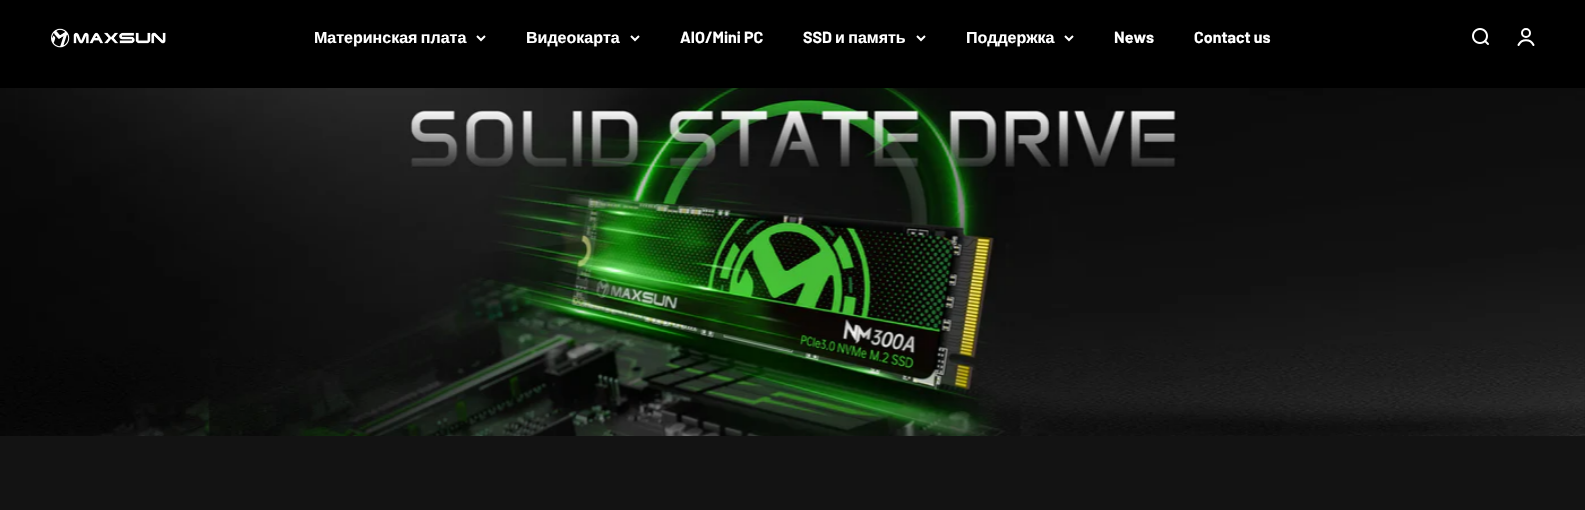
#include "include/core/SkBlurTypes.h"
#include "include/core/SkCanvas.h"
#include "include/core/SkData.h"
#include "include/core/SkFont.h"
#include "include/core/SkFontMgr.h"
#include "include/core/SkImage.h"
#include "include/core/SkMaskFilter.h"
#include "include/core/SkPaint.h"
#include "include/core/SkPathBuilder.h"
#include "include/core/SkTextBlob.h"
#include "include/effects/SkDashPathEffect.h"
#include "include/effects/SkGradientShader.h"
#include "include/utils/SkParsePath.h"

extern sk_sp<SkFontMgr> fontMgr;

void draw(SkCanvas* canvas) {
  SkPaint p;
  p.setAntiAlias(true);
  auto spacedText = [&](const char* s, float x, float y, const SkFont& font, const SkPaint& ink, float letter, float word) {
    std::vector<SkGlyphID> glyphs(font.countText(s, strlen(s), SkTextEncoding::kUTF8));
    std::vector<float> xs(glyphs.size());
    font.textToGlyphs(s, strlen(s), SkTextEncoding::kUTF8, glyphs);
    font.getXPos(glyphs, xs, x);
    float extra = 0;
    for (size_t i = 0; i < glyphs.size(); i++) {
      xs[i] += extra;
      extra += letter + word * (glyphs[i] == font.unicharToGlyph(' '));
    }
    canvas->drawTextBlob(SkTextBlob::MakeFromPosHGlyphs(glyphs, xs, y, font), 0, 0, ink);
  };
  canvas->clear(SkColorSetRGB(19, 19, 19));
  p.setColor(SK_ColorBLACK);
  canvas->drawRect(SkRect::MakeLTRB(0, 0, 1585, 88), p);
  canvas->drawImageRect(SkImages::DeferredFromEncodedData(SkData::MakeFromFileName("images/1.png")), SkRect::MakeLTRB(51, 28, 166, 48), SkSamplingOptions());
  p.setStyle(SkPaint::kStroke_Style);
  p.setStrokeWidth(2);
  p.setColor(SK_ColorWHITE);
  canvas->drawPath(SkPathBuilder().moveTo(477, 36).lineTo(481, 40).lineTo(485, 36).detach(), p);
  canvas->drawPath(SkPathBuilder().moveTo(631, 36).lineTo(635, 40).lineTo(639, 36).detach(), p);
  canvas->drawPath(SkPathBuilder().moveTo(917, 36).lineTo(921, 40).lineTo(925, 36).detach(), p);
  canvas->drawPath(SkPathBuilder().moveTo(1065, 36).lineTo(1069, 40).lineTo(1073, 36).detach(), p);
  canvas->drawImageRect(SkImages::DeferredFromEncodedData(SkData::MakeFromFileName("images/2.png")), SkRect::MakeLTRB(1472, 28, 1489, 45), SkSamplingOptions());
  canvas->drawCircle(1526, 33, 4, p);
  p.setStrokeCap(SkPaint::kRound_Cap);
  canvas->drawPath(SkPathBuilder().moveTo(1518.5f, 45).cubicTo(1521.5f, 38.5f, 1530.5f, 38.5f, 1533.5f, 45).detach(), p);
  canvas->drawImageRect(SkImages::DeferredFromEncodedData(SkData::MakeFromFileName("images/3.png")), SkRect::MakeLTRB(0, 88, 1585, 436), SkSamplingOptions());
  SkFont font1(fontMgr->matchFamilyStyle("Liberation Sans", SkFontStyle::Bold()), 16);
  font1.setSubpixel(true);
  p.setStyle(SkPaint::kFill_Style);
  spacedText("Материнская плата", 314, 43, font1, p, 0, -1);
  canvas->drawString("Видеокарта", 526, 43, font1, p);
  SkFont font2(fontMgr->matchFamilyStyle("Barlow", SkFontStyle::Bold()), 16);
  font2.setSubpixel(true);
  canvas->drawString("AIO/Mini PC", 680, 43, font2, p);
  canvas->drawString("SSD", 803, 43, font2, p);
  spacedText("и память", 835, 43, font1, p, 0, -1);
  canvas->drawString("Поддержка", 966, 43, font1, p);
  canvas->drawString("News", 1114, 43, font2, p);
  canvas->drawString("Contact us", 1194, 43, font2, p);
}
